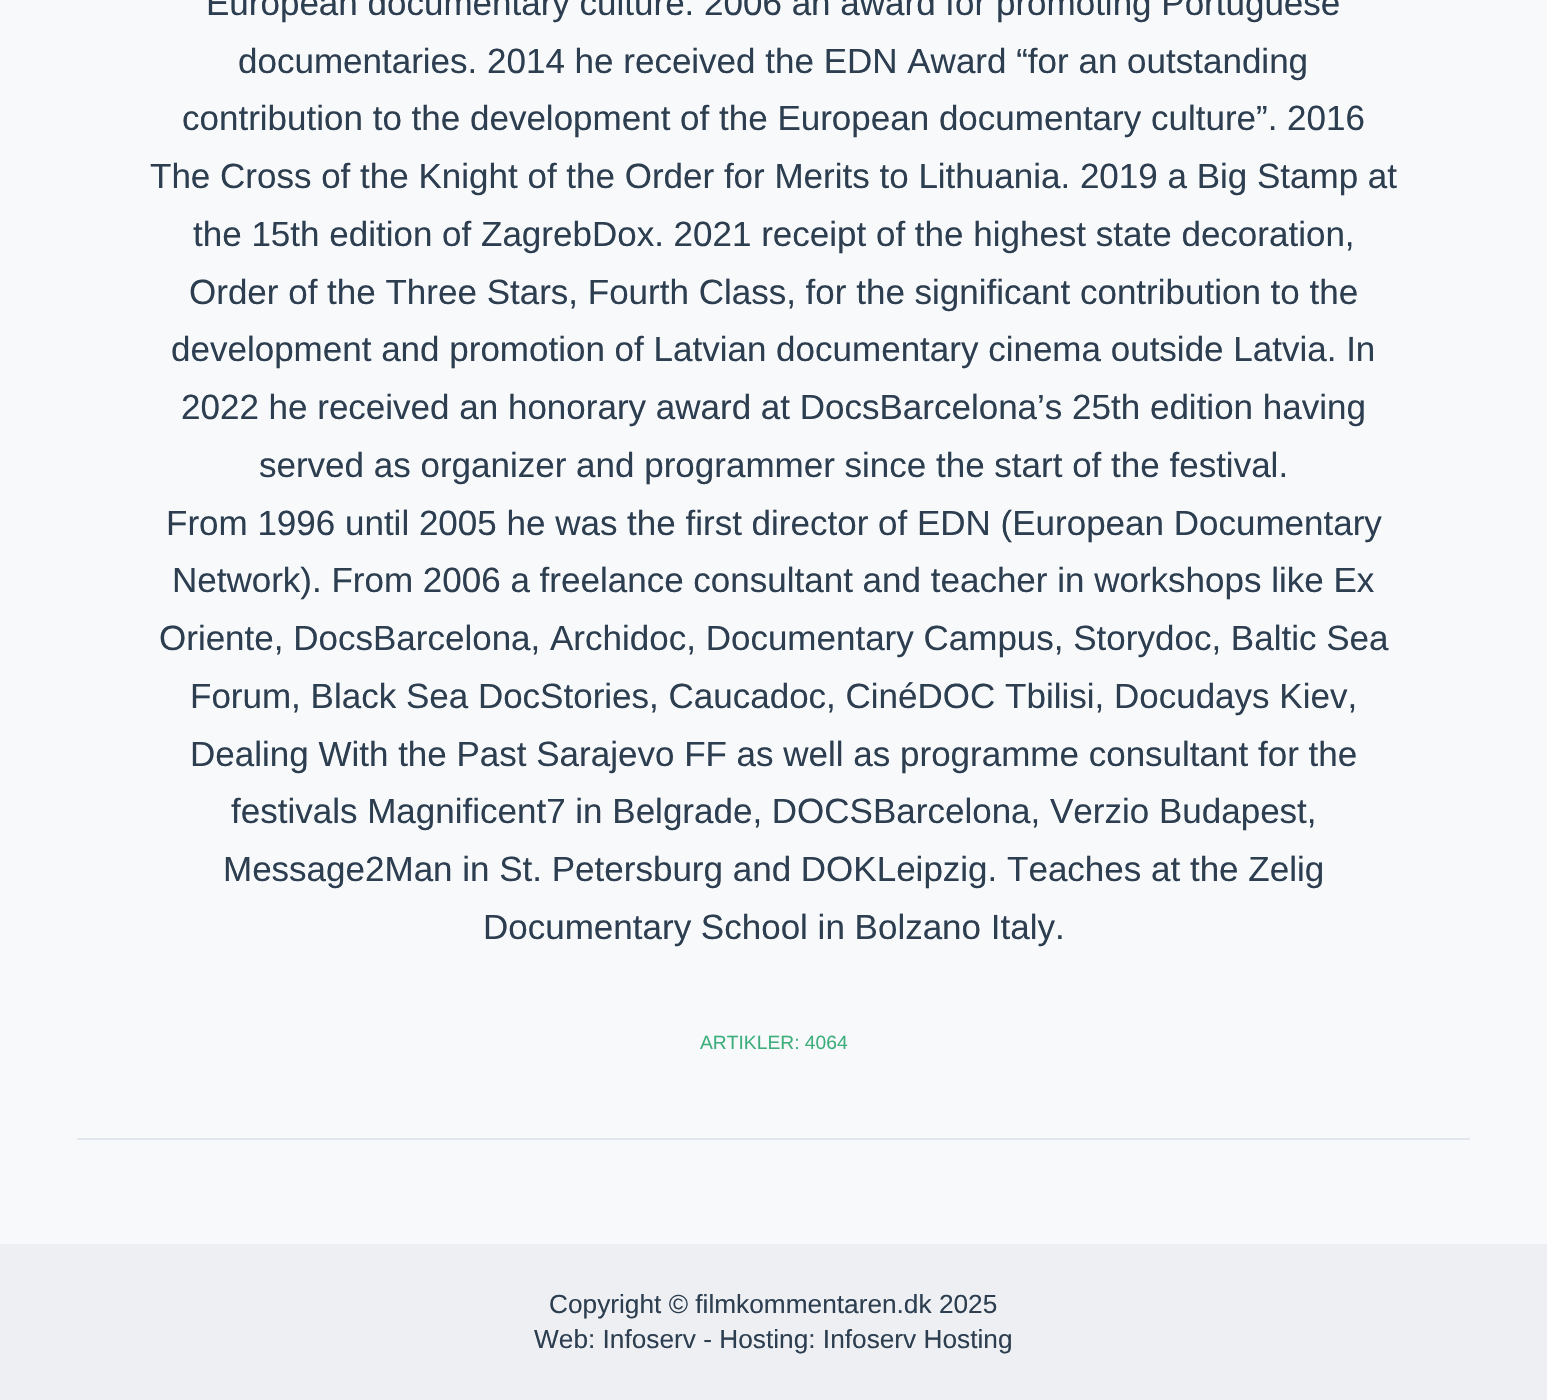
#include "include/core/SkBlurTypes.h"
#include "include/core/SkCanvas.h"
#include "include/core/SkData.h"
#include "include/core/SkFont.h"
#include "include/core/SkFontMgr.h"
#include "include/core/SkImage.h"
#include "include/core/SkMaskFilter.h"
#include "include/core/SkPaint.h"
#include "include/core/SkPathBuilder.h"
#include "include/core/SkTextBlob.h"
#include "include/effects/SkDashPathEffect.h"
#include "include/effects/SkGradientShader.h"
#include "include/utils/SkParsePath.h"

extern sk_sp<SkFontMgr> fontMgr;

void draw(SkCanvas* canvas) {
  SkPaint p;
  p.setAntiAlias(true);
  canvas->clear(SkColorSetRGB(248, 249, 251));
  p.setColor(SkColorSetRGB(226, 231, 237));
  canvas->drawRect(SkRect::MakeLTRB(77, 1138, 1470, 1140), p);
  p.setColor(SkColorSetRGB(237, 239, 242));
  canvas->drawRect(SkRect::MakeLTRB(0, 1244, 1547, 1400), p);
  SkFont font1(fontMgr->matchFamilyStyle("Liberation Sans", SkFontStyle::Normal()), 35);
  font1.setSubpixel(true);
  p.setColor(SkColorSetRGB(44, 62, 80));
  canvas->drawString("European documentary culture. 2006 an award for promoting Portuguese", 206, 15, font1, p);
  canvas->drawString("documentaries. 2014 he received the EDN Award “for an outstanding", 238, 73, font1, p);
  canvas->drawString("contribution to the development of the European documentary culture”. 2016", 182, 130, font1, p);
  canvas->drawString("The Cross of the Knight of the Order for Merits to Lithuania. 2019 a Big Stamp at", 150, 188, font1, p);
  canvas->drawString("the 15th edition of ZagrebDox. 2021 receipt of the highest state decoration,", 193, 246, font1, p);
  canvas->drawString("Order of the Three Stars, Fourth Class, for the significant contribution to the", 189, 304, font1, p);
  canvas->drawString("development and promotion of Latvian documentary cinema outside Latvia. In", 171, 361, font1, p);
  canvas->drawString("2022 he received an honorary award at DocsBarcelona’s 25th edition having", 181, 419, font1, p);
  canvas->drawString("served as organizer and programmer since the start of the festival.", 259, 477, font1, p);
  canvas->drawString("From 1996 until 2005 he was the first director of EDN (European Documentary", 166, 535, font1, p);
  canvas->drawString("Network). From 2006 a freelance consultant and teacher in workshops like Ex", 172, 592, font1, p);
  canvas->drawString("Oriente, DocsBarcelona, Archidoc, Documentary Campus, Storydoc, Baltic Sea", 159, 650, font1, p);
  canvas->drawString("Forum, Black Sea DocStories, Caucadoc, CinéDOC Tbilisi, Docudays Kiev,", 190, 708, font1, p);
  canvas->drawString("Dealing With the Past Sarajevo FF as well as programme consultant for the", 190, 766, font1, p);
  canvas->drawString("festivals Magnificent7 in Belgrade, DOCSBarcelona, Verzio Budapest,", 231, 823, font1, p);
  canvas->drawString("Message2Man in St. Petersburg and DOKLeipzig. Teaches at the Zelig", 223, 881, font1, p);
  canvas->drawString("Documentary School in Bolzano Italy.", 483, 939, font1, p);
  SkFont font2(fontMgr->matchFamilyStyle("Liberation Sans", SkFontStyle::Normal()), 19.25f);
  font2.setSubpixel(true);
  p.setColor(SkColorSetRGB(62, 175, 124));
  canvas->drawString("ARTIKLER: 4064", 700, 1049, font2, p);
  SkFont font3(fontMgr->matchFamilyStyle("Liberation Sans", SkFontStyle::Normal()), 26.25f);
  font3.setSubpixel(true);
  p.setColor(SkColorSetRGB(44, 62, 80));
  canvas->drawString("Copyright © filmkommentaren.dk 2025", 549, 1313, font3, p);
  canvas->drawString("Web: Infoserv - Hosting: Infoserv Hosting", 534, 1348, font3, p);
}
